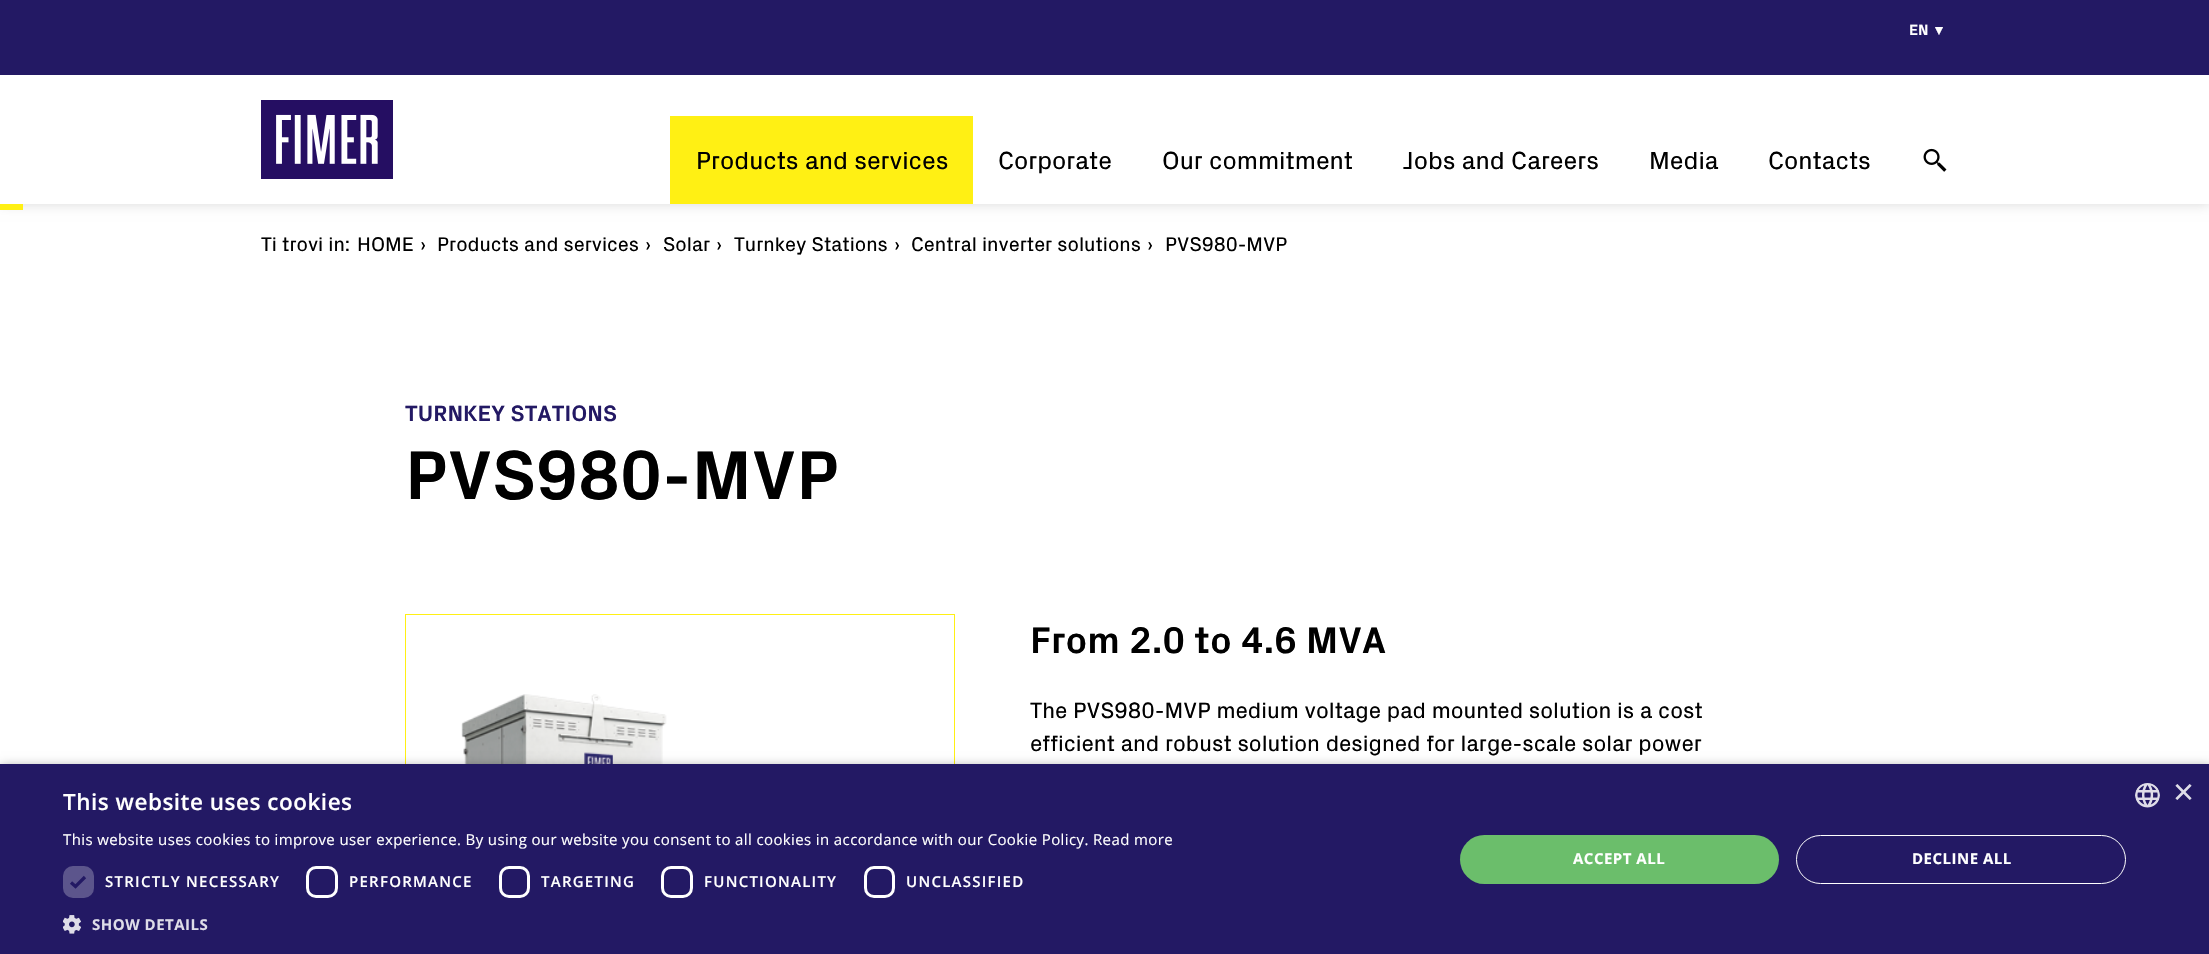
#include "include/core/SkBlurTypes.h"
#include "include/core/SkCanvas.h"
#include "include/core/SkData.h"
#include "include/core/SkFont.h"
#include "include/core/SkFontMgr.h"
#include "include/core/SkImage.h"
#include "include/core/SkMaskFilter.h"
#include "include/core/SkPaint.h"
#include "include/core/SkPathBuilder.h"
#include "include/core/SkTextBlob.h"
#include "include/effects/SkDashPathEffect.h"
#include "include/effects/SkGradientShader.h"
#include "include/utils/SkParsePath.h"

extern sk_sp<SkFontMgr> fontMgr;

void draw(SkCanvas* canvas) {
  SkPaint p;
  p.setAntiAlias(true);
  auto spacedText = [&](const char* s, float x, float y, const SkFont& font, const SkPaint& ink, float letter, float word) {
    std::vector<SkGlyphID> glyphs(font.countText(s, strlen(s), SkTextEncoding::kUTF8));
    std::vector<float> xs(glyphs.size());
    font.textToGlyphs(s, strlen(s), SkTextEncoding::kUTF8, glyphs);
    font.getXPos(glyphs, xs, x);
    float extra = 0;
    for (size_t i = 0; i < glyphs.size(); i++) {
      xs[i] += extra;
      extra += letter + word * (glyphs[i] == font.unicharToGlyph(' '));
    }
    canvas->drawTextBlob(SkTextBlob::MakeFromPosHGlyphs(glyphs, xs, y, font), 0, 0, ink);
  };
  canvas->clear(SK_ColorWHITE);
  p.setColor(SkColorSetARGB(38, 0, 0, 0));
  p.setMaskFilter(SkMaskFilter::MakeBlur(kNormal_SkBlurStyle, 6));
  canvas->drawRect(SkRect::MakeLTRB(0, -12, 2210, 204), p);
  p.setMaskFilter(nullptr);
  p.setColor(SK_ColorWHITE);
  canvas->drawRect(SkRect::MakeLTRB(0, 75, 2209, 204), p);
  p.setColor(SkColorSetRGB(35, 25, 100));
  canvas->drawRect(SkRect::MakeLTRB(0, 0, 2209, 75), p);
  canvas->drawImageRect(SkImages::DeferredFromEncodedData(SkData::MakeFromFileName("images/1.png")), SkRect::MakeLTRB(261, 100, 393, 179), SkSamplingOptions());
  p.setColor(SkColorSetRGB(255, 240, 20));
  canvas->drawRect(SkRect::MakeLTRB(670, 116, 973, 204), p);
  canvas->drawImageRect(SkImages::DeferredFromEncodedData(SkData::MakeFromFileName("images/2.png")), SkRect::MakeLTRB(1923, 148, 1947, 172), SkSamplingOptions());
  canvas->drawRect(SkRect::MakeLTRB(0, 204, 23, 210), p);
  p.setStyle(SkPaint::kStroke_Style);
  p.setStrokeWidth(1);
  canvas->drawRect(SkRect::MakeLTRB(405.5f, 614.5f, 954.5f, 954.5f), p);
  canvas->drawImageRect(SkImages::DeferredFromEncodedData(SkData::MakeFromFileName("images/3.png")), SkRect::MakeLTRB(461, 694, 667, 764), SkSamplingOptions());
  p.setStyle(SkPaint::kFill_Style);
  p.setColor(SkColorSetARGB(89, 0, 0, 0));
  p.setMaskFilter(SkMaskFilter::MakeBlur(kNormal_SkBlurStyle, 5));
  canvas->drawRect(SkRect::MakeLTRB(1, 766, 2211, 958), p);
  p.setMaskFilter(nullptr);
  p.setColor(SkColorSetRGB(35, 25, 100));
  canvas->drawRect(SkRect::MakeLTRB(0, 764, 2209, 954), p);
  p.setColor(SkColorSetRGB(92, 85, 140));
  canvas->drawRoundRect(SkRect::MakeLTRB(63, 866, 94, 898), 10, 10, p);
  p.setStyle(SkPaint::kStroke_Style);
  p.setStrokeWidth(3.3f);
  p.setColor(SkColorSetRGB(35, 25, 100));
  canvas->drawPath(SkPathBuilder().moveTo(71, 882.5f).lineTo(75.5f, 886.5f).lineTo(85, 877).detach(), p);
  p.setStrokeWidth(3);
  p.setColor(SK_ColorWHITE);
  canvas->drawRoundRect(SkRect::MakeLTRB(307.5f, 867.5f, 336.5f, 896.5f), 8.5f, 8.5f, p);
  canvas->drawRoundRect(SkRect::MakeLTRB(500.5f, 867.5f, 528.5f, 896.5f), 8.5f, 8.5f, p);
  canvas->drawRoundRect(SkRect::MakeLTRB(662.5f, 867.5f, 691.5f, 896.5f), 8.5f, 8.5f, p);
  canvas->drawRoundRect(SkRect::MakeLTRB(865.5f, 867.5f, 893.5f, 896.5f), 8.5f, 8.5f, p);
  canvas->drawImageRect(SkImages::DeferredFromEncodedData(SkData::MakeFromFileName("images/4.png")), SkRect::MakeLTRB(63, 915, 81, 934), SkSamplingOptions());
  p.setStyle(SkPaint::kFill_Style);
  p.setColor(SkColorSetRGB(107, 190, 107));
  canvas->drawRoundRect(SkRect::MakeLTRB(1460, 835, 1779, 884), 24.5f, 24.5f, p);
  p.setStyle(SkPaint::kStroke_Style);
  p.setStrokeWidth(1);
  p.setColor(SK_ColorWHITE);
  canvas->drawRoundRect(SkRect::MakeLTRB(1796.5f, 835.5f, 2125.5f, 883.5f), 24, 24, p);
  canvas->drawImageRect(SkImages::DeferredFromEncodedData(SkData::MakeFromFileName("images/5.png")), SkRect::MakeLTRB(2135, 783, 2160, 808), SkSamplingOptions());
  SkFont font1(fontMgr->matchFamilyStyle("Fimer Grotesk", SkFontStyle::Bold()), 15);
  font1.setSubpixel(true);
  p.setStyle(SkPaint::kFill_Style);
  canvas->drawString("EN", 1909, 35, font1, p);
  SkFont font2(fontMgr->matchFamilyStyle("DejaVu Sans", SkFontStyle::Bold()), 15);
  font2.setSubpixel(true);
  canvas->drawString("▾", 1935, 35, font2, p);
  SkFont font3(fontMgr->matchFamilyStyle("Fimer Grotesk", SkFontStyle::Normal()), 25);
  font3.setSubpixel(true);
  p.setColor(SK_ColorBLACK);
  canvas->drawString("Products and services", 696, 169, font3, p);
  canvas->drawString("Corporate", 998, 169, font3, p);
  canvas->drawString("Our commitment", 1162, 169, font3, p);
  canvas->drawString("Jobs and Careers", 1403, 169, font3, p);
  canvas->drawString("Media", 1649, 169, font3, p);
  canvas->drawString("Contacts", 1768, 169, font3, p);
  SkFont font4(fontMgr->matchFamilyStyle("Fimer Grotesk", SkFontStyle::Normal()), 20);
  font4.setSubpixel(true);
  canvas->drawString("Ti trovi in:", 261, 251, font4, p);
  canvas->drawString("HOME", 357, 251, font4, p);
  canvas->drawString("›", 420, 251, font4, p);
  canvas->drawString("Products and services", 437, 251, font4, p);
  canvas->drawString("›", 645, 251, font4, p);
  canvas->drawString("Solar", 663, 251, font4, p);
  canvas->drawString("›", 716, 251, font4, p);
  canvas->drawString("Turnkey Stations", 734, 251, font4, p);
  canvas->drawString("›", 894, 251, font4, p);
  canvas->drawString("Central inverter solutions", 911, 251, font4, p);
  canvas->drawString("›", 1147, 251, font4, p);
  canvas->drawString("PVS980-MVP", 1165, 251, font4, p);
  SkFont font5(fontMgr->matchFamilyStyle("Fimer Grotesk", SkFontStyle::Bold()), 22.5f);
  font5.setSubpixel(true);
  p.setColor(SkColorSetRGB(35, 25, 100));
  canvas->drawString("TURNKEY STATIONS", 405, 421, font5, p);
  SkFont font6(fontMgr->matchFamilyStyle("Fimer Grotesk", SkFontStyle::Bold()), 70);
  font6.setSubpixel(true);
  p.setColor(SK_ColorBLACK);
  canvas->drawString("PVS980-MVP", 405, 499, font6, p);
  SkFont font7(fontMgr->matchFamilyStyle("Fimer Grotesk", SkFontStyle::Bold()), 37.5f);
  font7.setSubpixel(true);
  canvas->drawString("From 2.0 to 4.6 MVA", 1030, 653, font7, p);
  SkFont font8(fontMgr->matchFamilyStyle("Fimer Grotesk", SkFontStyle::Normal()), 22.5f);
  font8.setSubpixel(true);
  canvas->drawString("The PVS980-MVP medium voltage pad mounted solution is a cost", 1030, 718, font8, p);
  canvas->drawString("efficient and robust solution designed for large-scale solar power", 1030, 751, font8, p);
  SkFont font9(fontMgr->matchFamilyStyle("Open Sans", SkFontStyle(600, SkFontStyle::kNormal_Width, SkFontStyle::kUpright_Slant)), 22.5f);
  font9.setSubpixel(true);
  p.setColor(SK_ColorWHITE);
  spacedText("This website uses cookies", 63, 810, font9, p, 0.5f, 0);
  SkFont font10(fontMgr->matchFamilyStyle("Open Sans", SkFontStyle::Normal()), 15);
  font10.setSubpixel(true);
  spacedText("This website uses cookies to improve user experience. By using our website you consent to all cookies in accordance with our Cookie Policy. Read more", 63, 845, font10, p, 0.38f, 0);
  SkFont font11(fontMgr->matchFamilyStyle("Open Sans", SkFontStyle(600, SkFontStyle::kNormal_Width, SkFontStyle::kUpright_Slant)), 15);
  font11.setSubpixel(true);
  spacedText("STRICTLY NECESSARY", 105, 887, font11, p, 1.25f, 0);
  spacedText("PERFORMANCE", 349, 887, font11, p, 1.25f, 0);
  spacedText("TARGETING", 541, 887, font11, p, 1.25f, 0);
  spacedText("FUNCTIONALITY", 704, 887, font11, p, 1.25f, 0);
  spacedText("UNCLASSIFIED", 906, 887, font11, p, 1.25f, 0);
  SkFont font12(fontMgr->matchFamilyStyle("Open Sans", SkFontStyle::Bold()), 15);
  font12.setSubpixel(true);
  p.setColor(SkColorSetRGB(222, 221, 232));
  spacedText("SHOW DETAILS", 92, 930, font12, p, 0.5f, 0);
  p.setColor(SK_ColorWHITE);
  spacedText("ACCEPT ALL", 1573, 864, font12, p, 0.5f, 0);
  spacedText("DECLINE ALL", 1912, 864, font12, p, 0.5f, 0);
  SkFont font13(fontMgr->matchFamilyStyle("Liberation Sans", SkFontStyle::Normal()), 36);
  font13.setSubpixel(true);
  p.setColor(SkColorSetRGB(222, 221, 232));
  canvas->drawString("×", 2173, 804, font13, p);
}
